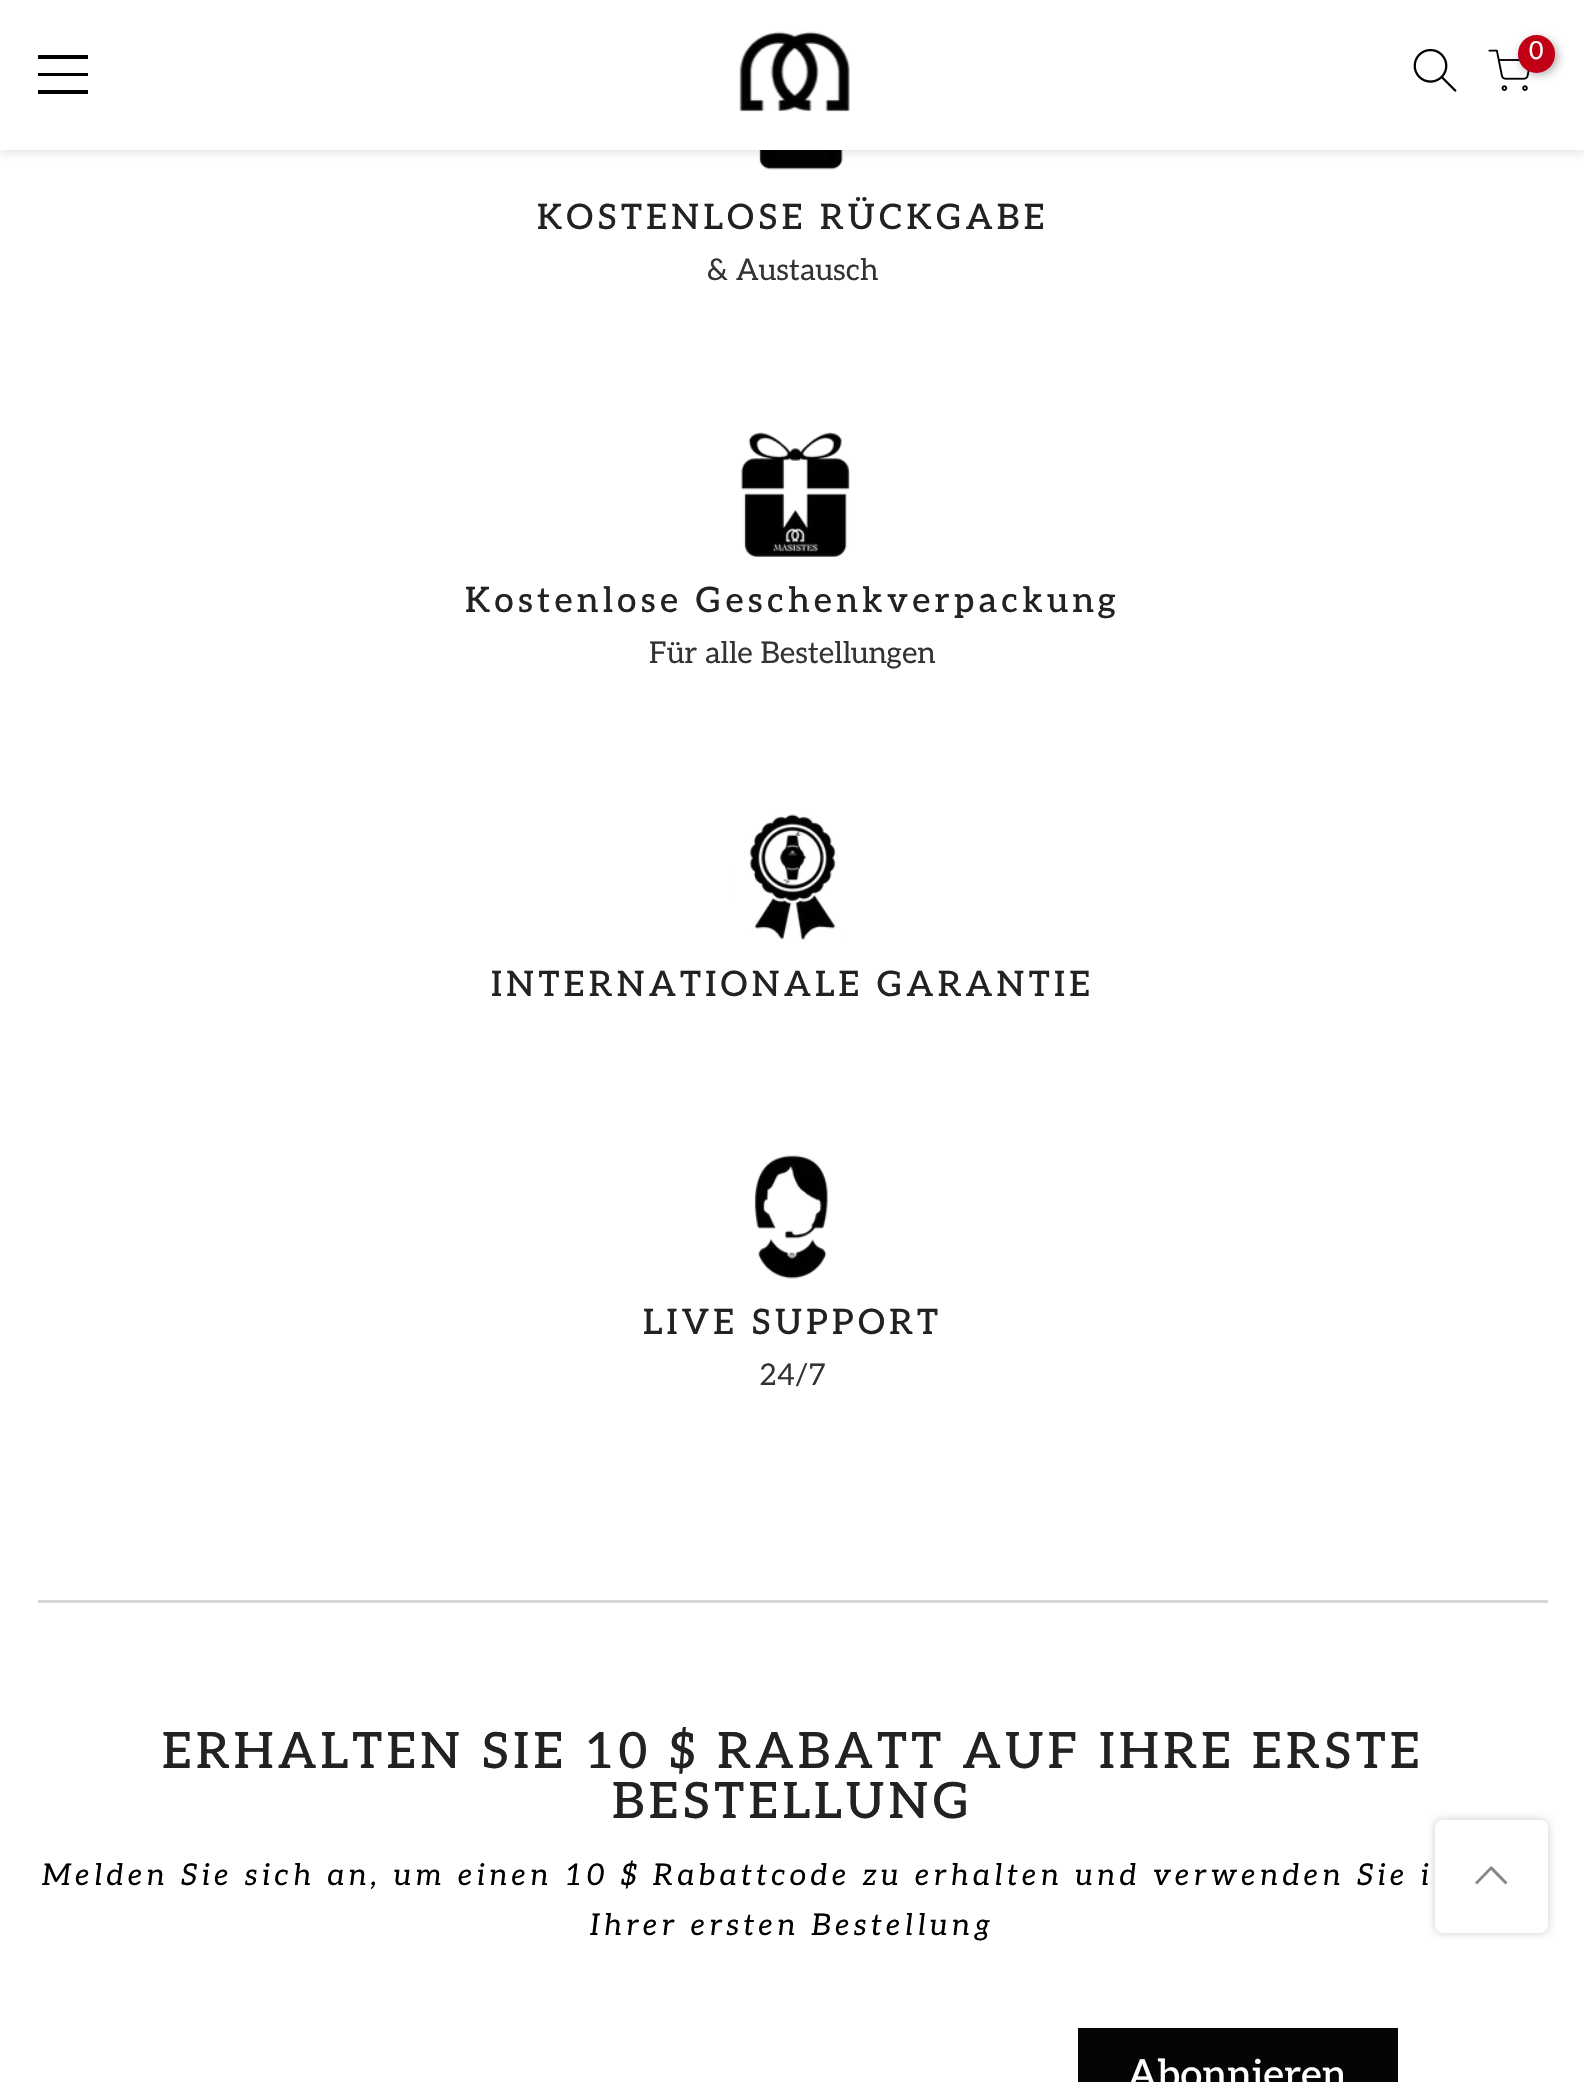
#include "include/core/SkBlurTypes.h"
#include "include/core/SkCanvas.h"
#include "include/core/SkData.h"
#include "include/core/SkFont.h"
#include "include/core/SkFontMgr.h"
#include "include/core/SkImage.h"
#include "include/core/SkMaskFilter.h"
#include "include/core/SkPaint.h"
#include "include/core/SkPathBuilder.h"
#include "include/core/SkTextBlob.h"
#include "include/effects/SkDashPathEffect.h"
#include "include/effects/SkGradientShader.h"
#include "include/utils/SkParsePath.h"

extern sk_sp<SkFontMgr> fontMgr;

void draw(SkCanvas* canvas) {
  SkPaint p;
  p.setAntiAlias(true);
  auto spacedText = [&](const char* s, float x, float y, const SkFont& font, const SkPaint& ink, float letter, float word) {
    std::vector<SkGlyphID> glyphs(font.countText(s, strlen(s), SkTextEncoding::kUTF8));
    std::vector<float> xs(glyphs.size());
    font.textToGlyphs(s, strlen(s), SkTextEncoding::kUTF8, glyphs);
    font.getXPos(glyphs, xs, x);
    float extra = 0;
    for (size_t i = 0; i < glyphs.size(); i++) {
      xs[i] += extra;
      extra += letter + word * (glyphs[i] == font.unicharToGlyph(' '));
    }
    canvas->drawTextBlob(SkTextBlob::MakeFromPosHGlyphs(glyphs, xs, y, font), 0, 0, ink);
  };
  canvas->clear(SK_ColorWHITE);
  canvas->drawImageRect(SkImages::DeferredFromEncodedData(SkData::MakeFromFileName("images/4.png")), SkRect::MakeLTRB(759, 150, 843, 170), SkSamplingOptions());
  p.setColor(SkColorSetARGB(26, 0, 0, 0));
  p.setMaskFilter(SkMaskFilter::MakeBlur(kNormal_SkBlurStyle, 4));
  canvas->drawRect(SkRect::MakeLTRB(0, 3, 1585, 153), p);
  p.setMaskFilter(nullptr);
  p.setColor(SK_ColorWHITE);
  canvas->drawRect(SkRect::MakeLTRB(0, 0, 1584, 150), p);
  canvas->drawImageRect(SkImages::DeferredFromEncodedData(SkData::MakeFromFileName("images/1.png")), SkRect::MakeLTRB(739, 31, 850, 112), SkSamplingOptions());
  canvas->drawImageRect(SkImages::DeferredFromEncodedData(SkData::MakeFromFileName("images/2.png")), SkRect::MakeLTRB(1413, 48, 1457, 92), SkSamplingOptions());
  canvas->drawImageRect(SkImages::DeferredFromEncodedData(SkData::MakeFromFileName("images/3.png")), SkRect::MakeLTRB(1488, 49, 1530, 91), SkSamplingOptions());
  p.setColor(SkColorSetARGB(77, 0, 0, 0));
  p.setMaskFilter(SkMaskFilter::MakeBlur(kNormal_SkBlurStyle, 4));
  canvas->drawRoundRect(SkRect::MakeLTRB(1520, 38, 1558, 75), 18.5f, 18.5f, p);
  p.setMaskFilter(nullptr);
  p.setColor(SkColorSetRGB(193, 0, 22));
  canvas->drawRoundRect(SkRect::MakeLTRB(1518, 35, 1555, 73), 18.5f, 18.5f, p);
  p.setColor(SK_ColorBLACK);
  canvas->drawRect(SkRect::MakeLTRB(38, 55, 88, 59), p);
  canvas->drawRect(SkRect::MakeLTRB(38, 73, 88, 76), p);
  canvas->drawRect(SkRect::MakeLTRB(38, 90, 88, 94), p);
  canvas->drawImageRect(SkImages::DeferredFromEncodedData(SkData::MakeFromFileName("images/5.png")), SkRect::MakeLTRB(741, 432, 850, 557), SkSamplingOptions());
  canvas->drawImageRect(SkImages::DeferredFromEncodedData(SkData::MakeFromFileName("images/6.png")), SkRect::MakeLTRB(732, 814, 847, 940), SkSamplingOptions());
  canvas->drawImageRect(SkImages::DeferredFromEncodedData(SkData::MakeFromFileName("images/7.png")), SkRect::MakeLTRB(754, 1155, 828, 1279), SkSamplingOptions());
  p.setColor(SkColorSetRGB(214, 214, 214));
  canvas->drawRect(SkRect::MakeLTRB(38, 1600, 1548, 1603), p);
  p.setColor(SkColorSetRGB(5, 5, 5));
  canvas->drawRect(SkRect::MakeLTRB(1078, 2028, 1398, 2082), p);
  p.setColor(SkColorSetARGB(51, 0, 0, 0));
  p.setMaskFilter(SkMaskFilter::MakeBlur(kNormal_SkBlurStyle, 4));
  canvas->drawRoundRect(SkRect::MakeLTRB(1435, 1820, 1548, 1933), 8, 8, p);
  p.setMaskFilter(nullptr);
  p.setColor(SK_ColorWHITE);
  canvas->drawRoundRect(SkRect::MakeLTRB(1435, 1820, 1548, 1933), 8, 8, p);
  p.setColor(SkColorSetRGB(135, 135, 135));
  canvas->drawPath(SkPathBuilder().moveTo(1493.5f, 1868).lineTo(1491, 1866).lineTo(1475, 1882.5f).lineTo(1477, 1884.5f).lineTo(1491, 1870).lineTo(1505.5f, 1884.5f).lineTo(1507.5f, 1882.5f).close().detach(), p);
  SkFont font1(fontMgr->matchFamilyStyle("Aleo", SkFontStyle::Normal()), 25);
  font1.setSubpixel(true);
  p.setColor(SK_ColorWHITE);
  canvas->drawString("0", 1529, 59, font1, p);
  SkFont font2(fontMgr->matchFamilyStyle("Aleo", SkFontStyle(500, SkFontStyle::kNormal_Width, SkFontStyle::kUpright_Slant)), 35);
  font2.setSubpixel(true);
  p.setColor(SkColorSetRGB(34, 34, 34));
  spacedText("KOSTENLOSE RÜCKGABE", 537, 229, font2, p, 4.25f, 0);
  SkFont font3(fontMgr->matchFamilyStyle("Aleo", SkFontStyle::Normal()), 30);
  font3.setSubpixel(true);
  p.setColor(SkColorSetRGB(51, 51, 51));
  canvas->drawString("& Austausch", 707, 280, font3, p);
  p.setColor(SkColorSetRGB(34, 34, 34));
  spacedText("Kostenlose Geschenkverpackung", 465, 612, font2, p, 4.25f, 0);
  p.setColor(SkColorSetRGB(51, 51, 51));
  canvas->drawString("Für alle Bestellungen", 649, 663, font3, p);
  p.setColor(SkColorSetRGB(34, 34, 34));
  spacedText("INTERNATIONALE GARANTIE", 491, 996, font2, p, 4.25f, 0);
  spacedText("LIVE SUPPORT", 643, 1334, font2, p, 4.25f, 0);
  p.setColor(SkColorSetRGB(51, 51, 51));
  canvas->drawString("24/7", 759, 1385, font3, p);
  SkFont font4(fontMgr->matchFamilyStyle("Aleo", SkFontStyle(500, SkFontStyle::kNormal_Width, SkFontStyle::kUpright_Slant)), 50);
  font4.setSubpixel(true);
  p.setColor(SkColorSetRGB(34, 34, 34));
  spacedText("ERHALTEN SIE 10 $ RABATT AUF IHRE ERSTE", 162, 1768, font4, p, 4.25f, 0);
  spacedText("BESTELLUNG", 612, 1818, font4, p, 4.25f, 0);
  SkFont font5(fontMgr->matchFamilyStyle("Aleo", SkFontStyle::Italic()), 30);
  font5.setSubpixel(true);
  p.setColor(SK_ColorBLACK);
  spacedText("Melden Sie sich an, um einen 10 $ Rabattcode zu erhalten und verwenden Sie i", 42, 1885, font5, p, 4.25f, 0);
  spacedText("Ihrer ersten Bestellung", 590, 1935, font5, p, 4.25f, 0);
  SkFont font6(fontMgr->matchFamilyStyle("Aleo", SkFontStyle(500, SkFontStyle::kNormal_Width, SkFontStyle::kUpright_Slant)), 40);
  font6.setSubpixel(true);
  p.setColor(SK_ColorWHITE);
  canvas->drawString("Abonnieren", 1127, 2088, font6, p);
}
